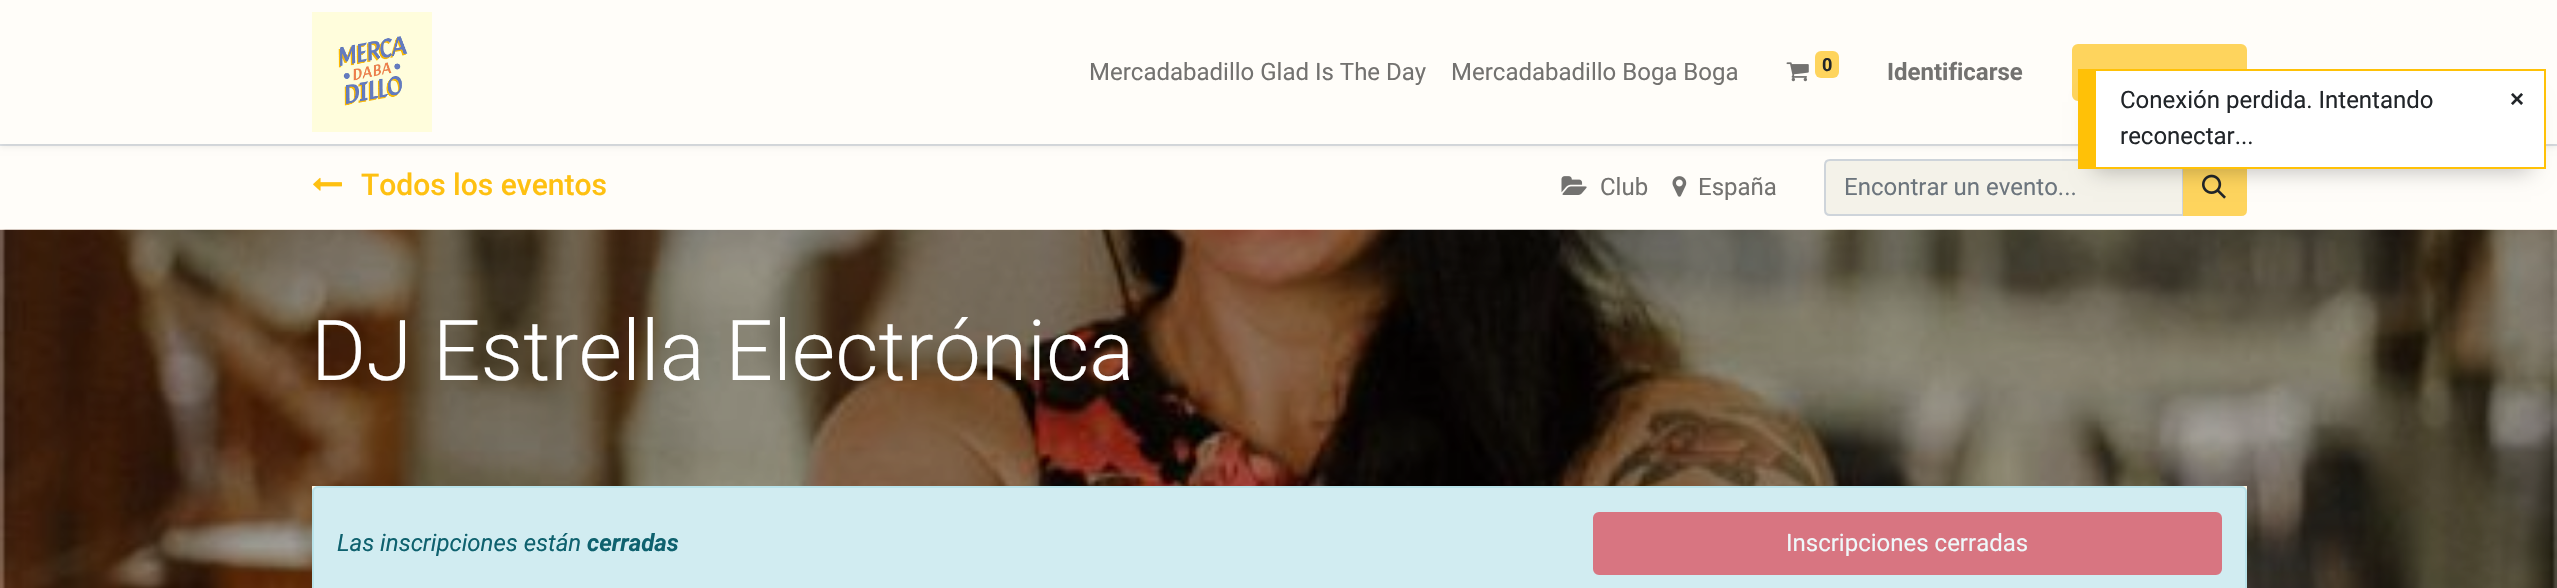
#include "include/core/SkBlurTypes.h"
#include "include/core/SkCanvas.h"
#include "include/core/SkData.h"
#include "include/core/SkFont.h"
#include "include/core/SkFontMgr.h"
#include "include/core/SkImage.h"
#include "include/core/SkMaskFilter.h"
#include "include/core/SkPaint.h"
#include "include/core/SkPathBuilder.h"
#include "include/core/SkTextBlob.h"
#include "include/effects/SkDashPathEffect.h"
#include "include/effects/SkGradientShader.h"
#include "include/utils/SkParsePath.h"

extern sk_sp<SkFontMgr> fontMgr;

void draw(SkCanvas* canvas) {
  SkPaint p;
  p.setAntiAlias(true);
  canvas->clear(SkColorSetRGB(255, 253, 249));
  p.setColor(SkColorSetRGB(222, 226, 230));
  canvas->drawRect(SkRect::MakeLTRB(0, 144, 2557, 146), p);
  p.setColor(SkColorSetARGB(18, 0, 0, 0));
  p.setMaskFilter(SkMaskFilter::MakeBlur(kNormal_SkBlurStyle, 3));
  canvas->drawRect(SkRect::MakeLTRB(0, 3, 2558, 147), p);
  p.setMaskFilter(nullptr);
  p.setColor(SkColorSetRGB(255, 253, 249));
  canvas->drawRect(SkRect::MakeLTRB(0, 0, 2557, 144), p);
  canvas->drawImageRect(SkImages::DeferredFromEncodedData(SkData::MakeFromFileName("images/1.png")), SkRect::MakeLTRB(312, 12, 432, 132), SkSamplingOptions());
  canvas->drawImageRect(SkImages::DeferredFromEncodedData(SkData::MakeFromFileName("images/2.png")), SkRect::MakeLTRB(1786, 62, 1809, 82), SkSamplingOptions());
  p.setColor(SkColorSetRGB(254, 212, 93));
  canvas->drawRoundRect(SkRect::MakeLTRB(1815, 51, 1839, 78), 6, 6, p);
  canvas->drawRoundRect(SkRect::MakeLTRB(2073, 45, 2246, 100), 5, 5, p);
  p.setStyle(SkPaint::kStroke_Style);
  p.setStrokeWidth(2);
  canvas->drawRoundRect(SkRect::MakeLTRB(2073, 45, 2246, 100), 5, 5, p);
  canvas->drawImageRect(SkImages::DeferredFromEncodedData(SkData::MakeFromFileName("images/3.png")), SkRect::MakeLTRB(313, 177, 342, 191), SkSamplingOptions());
  canvas->drawImageRect(SkImages::DeferredFromEncodedData(SkData::MakeFromFileName("images/4.png")), SkRect::MakeLTRB(1561, 176, 1587, 195), SkSamplingOptions());
  canvas->drawImageRect(SkImages::DeferredFromEncodedData(SkData::MakeFromFileName("images/5.png")), SkRect::MakeLTRB(1672, 176, 1687, 197), SkSamplingOptions());
  p.setStyle(SkPaint::kFill_Style);
  p.setColor(SkColorSetRGB(244, 242, 233));
  canvas->drawPath(SkPathBuilder().moveTo(1830, 160).lineTo(2183, 160).lineTo(2183, 215).lineTo(1830, 215).cubicTo(1827, 215, 1825, 213, 1825, 210).lineTo(1825, 165).cubicTo(1825, 162, 1827, 160, 1830, 160).close().detach(), p);
  p.setStyle(SkPaint::kStroke_Style);
  p.setColor(SkColorSetRGB(206, 212, 218));
  canvas->drawPath(SkPathBuilder().moveTo(1830, 160).lineTo(2183, 160).lineTo(2183, 215).lineTo(1830, 215).cubicTo(1827, 215, 1825, 213, 1825, 210).lineTo(1825, 165).cubicTo(1825, 162, 1827, 160, 1830, 160).close().detach(), p);
  p.setStyle(SkPaint::kFill_Style);
  p.setColor(SkColorSetRGB(254, 212, 93));
  canvas->drawPath(SkPathBuilder().moveTo(2184, 160).lineTo(2241, 160).cubicTo(2244, 160, 2246, 162, 2246, 165).lineTo(2246, 210).cubicTo(2246, 213, 2244, 215, 2241, 215).lineTo(2184, 215).close().detach(), p);
  p.setStyle(SkPaint::kStroke_Style);
  canvas->drawPath(SkPathBuilder().moveTo(2184, 160).lineTo(2241, 160).cubicTo(2244, 160, 2246, 162, 2246, 165).lineTo(2246, 210).cubicTo(2246, 213, 2244, 215, 2241, 215).lineTo(2184, 215).close().detach(), p);
  canvas->drawImageRect(SkImages::DeferredFromEncodedData(SkData::MakeFromFileName("images/6.png")), SkRect::MakeLTRB(2202, 174, 2226, 199), SkSamplingOptions());
  canvas->drawImageRect(SkImages::DeferredFromEncodedData(SkData::MakeFromFileName("images/7.png")), SkRect::MakeLTRB(0, 229, 2557, 588), SkSamplingOptions());
  p.setStyle(SkPaint::kFill_Style);
  p.setColor(SkColorSetRGB(255, 247, 226));
  canvas->drawRect(SkRect::MakeLTRB(312, 486, 2247, 492), p);
  p.setColor(SkColorSetRGB(209, 236, 241));
  canvas->drawPath(SkPathBuilder().moveTo(318, 486).lineTo(2241, 486).cubicTo(2244.5f, 486, 2247, 488.5f, 2247, 492).lineTo(2247, 588).lineTo(312, 588).lineTo(312, 492).cubicTo(312, 488.5f, 314.5f, 486, 318, 486).close().detach(), p);
  p.setStyle(SkPaint::kStroke_Style);
  p.setColor(SkColorSetRGB(185, 227, 234));
  canvas->drawRoundRect(SkRect::MakeLTRB(313, 487, 2246, 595), 5, 5, p);
  p.setStyle(SkPaint::kFill_Style);
  p.setColor(SkColorSetRGB(216, 117, 129));
  canvas->drawRoundRect(SkRect::MakeLTRB(1594, 513, 2221, 574), 5, 5, p);
  p.setStyle(SkPaint::kStroke_Style);
  canvas->drawRoundRect(SkRect::MakeLTRB(1594, 513, 2221, 574), 5, 5, p);
  p.setStyle(SkPaint::kFill_Style);
  p.setColor(SkColorSetARGB(64, 0, 0, 0));
  p.setMaskFilter(SkMaskFilter::MakeBlur(kNormal_SkBlurStyle, 10.5f));
  canvas->drawRect(SkRect::MakeLTRB(2093, 102, 2531, 171), p);
  p.setMaskFilter(nullptr);
  p.setColor(SK_ColorWHITE);
  canvas->drawRect(SkRect::MakeLTRB(2096, 71, 2544, 167), p);
  p.setColor(SkColorSetRGB(255, 193, 7));
  canvas->drawRect(SkRect::MakeLTRB(2096, 69, 2546, 71), p);
  canvas->drawRect(SkRect::MakeLTRB(2544, 69, 2546, 168), p);
  canvas->drawRect(SkRect::MakeLTRB(2078, 167, 2546, 169), p);
  canvas->drawRect(SkRect::MakeLTRB(2078, 69, 2096, 167), p);
  SkFont font1(fontMgr->matchFamilyStyle("Roboto", SkFontStyle::Normal()), 24);
  font1.setSubpixel(true);
  p.setColor(SkColorSetRGB(115, 114, 112));
  canvas->drawString("Mercadabadillo Glad Is The Day", 1089, 80, font1, p);
  canvas->drawString("Mercadabadillo Boga Boga", 1451, 80, font1, p);
  SkFont font2(fontMgr->matchFamilyStyle("Roboto", SkFontStyle::Bold()), 18);
  font2.setSubpixel(true);
  p.setColor(SkColorSetRGB(33, 37, 41));
  canvas->drawString("0", 1822, 71, font2, p);
  SkFont font3(fontMgr->matchFamilyStyle("Roboto", SkFontStyle::Bold()), 24);
  font3.setSubpixel(true);
  p.setColor(SkColorSetRGB(115, 114, 112));
  canvas->drawString("Identificarse", 1887, 80, font3, p);
  SkFont font4(fontMgr->matchFamilyStyle("Roboto", SkFontStyle(500, SkFontStyle::kNormal_Width, SkFontStyle::kUpright_Slant)), 30);
  font4.setSubpixel(true);
  p.setColor(SkColorSetRGB(254, 192, 17));
  canvas->drawString("Todos los eventos", 361, 195, font4, p);
  p.setColor(SkColorSetRGB(115, 114, 112));
  canvas->drawString("Club", 1600, 195, font1, p);
  canvas->drawString("España", 1698, 195, font1, p);
  p.setColor(SkColorSetRGB(108, 117, 125));
  canvas->drawString("Encontrar un evento...", 1844, 195, font1, p);
  SkFont font5(fontMgr->matchFamilyStyle("Roboto", SkFontStyle(300, SkFontStyle::kNormal_Width, SkFontStyle::kUpright_Slant)), 84);
  font5.setSubpixel(true);
  p.setColor(SK_ColorWHITE);
  canvas->drawString("DJ Estrella Electrónica", 311, 380, font5, p);
  SkFont font6(fontMgr->matchFamilyStyle("Roboto", SkFontStyle::Italic()), 24);
  font6.setSubpixel(true);
  p.setColor(SkColorSetRGB(14, 97, 110));
  canvas->drawString("Las inscripciones están", 337, 551, font6, p);
  SkFont font7(fontMgr->matchFamilyStyle("Roboto", SkFontStyle::BoldItalic()), 24);
  font7.setSubpixel(true);
  canvas->drawString("cerradas", 587, 551, font7, p);
  p.setColor(SkColorSetRGB(239, 248, 250));
  canvas->drawString("Inscripciones cerradas", 1786, 551, font1, p);
  p.setColor(SkColorSetRGB(33, 37, 41));
  canvas->drawString("Conexión perdida. Intentando", 2120, 108, font1, p);
  canvas->drawString("reconectar...", 2120, 144, font1, p);
  SkFont font8(fontMgr->matchFamilyStyle("Liberation Sans", SkFontStyle::Bold()), 24);
  font8.setSubpixel(true);
  canvas->drawString("×", 2510, 107, font8, p);
}
